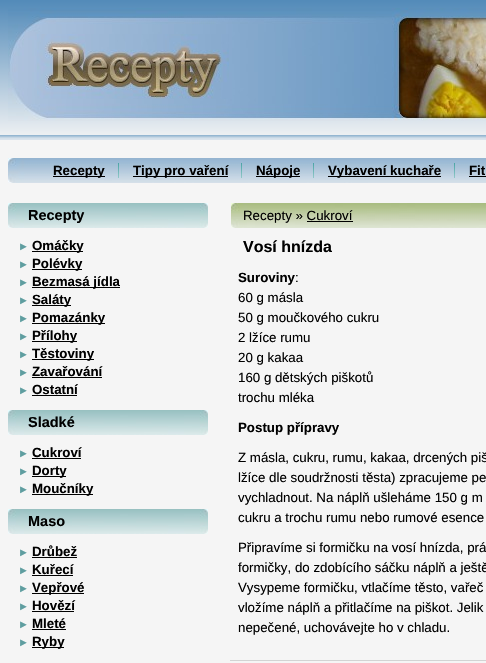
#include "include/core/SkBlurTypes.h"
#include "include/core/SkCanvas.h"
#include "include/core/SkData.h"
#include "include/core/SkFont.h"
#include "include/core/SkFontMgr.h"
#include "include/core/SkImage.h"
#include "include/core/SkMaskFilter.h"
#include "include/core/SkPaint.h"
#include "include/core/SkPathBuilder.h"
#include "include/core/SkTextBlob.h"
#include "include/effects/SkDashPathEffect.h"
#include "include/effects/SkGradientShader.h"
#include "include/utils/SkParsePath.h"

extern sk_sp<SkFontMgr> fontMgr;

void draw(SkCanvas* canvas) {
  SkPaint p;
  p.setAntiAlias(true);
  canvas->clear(SkColorSetRGB(245, 245, 245));
  canvas->drawImageRect(SkImages::DeferredFromEncodedData(SkData::MakeFromFileName("images/1.png")), SkRect::MakeLTRB(0, 0, 486, 140), SkSamplingOptions());
  canvas->drawImageRect(SkImages::DeferredFromEncodedData(SkData::MakeFromFileName("images/2.png")), SkRect::MakeLTRB(8, 8, 486, 121), SkSamplingOptions());
  canvas->drawImageRect(SkImages::DeferredFromEncodedData(SkData::MakeFromFileName("images/3.png")), SkRect::MakeLTRB(37, 34, 229, 99), SkSamplingOptions());
  canvas->drawImageRect(SkImages::DeferredFromEncodedData(SkData::MakeFromFileName("images/4.png")), SkRect::MakeLTRB(8, 158, 486, 183), SkSamplingOptions());
  p.setColor(SK_ColorBLACK);
  canvas->drawRect(SkRect::MakeLTRB(53, 176, 105, 177), p);
  canvas->drawImageRect(SkImages::DeferredFromEncodedData(SkData::MakeFromFileName("images/5.png")), SkRect::MakeLTRB(118, 163, 119, 178), SkSamplingOptions());
  canvas->drawRect(SkRect::MakeLTRB(133, 176, 228, 177), p);
  canvas->drawImageRect(SkImages::DeferredFromEncodedData(SkData::MakeFromFileName("images/5.png")), SkRect::MakeLTRB(241, 163, 242, 178), SkSamplingOptions());
  canvas->drawRect(SkRect::MakeLTRB(256, 176, 300, 177), p);
  canvas->drawImageRect(SkImages::DeferredFromEncodedData(SkData::MakeFromFileName("images/5.png")), SkRect::MakeLTRB(313, 163, 314, 178), SkSamplingOptions());
  canvas->drawRect(SkRect::MakeLTRB(328, 176, 441, 177), p);
  canvas->drawImageRect(SkImages::DeferredFromEncodedData(SkData::MakeFromFileName("images/5.png")), SkRect::MakeLTRB(454, 163, 455, 178), SkSamplingOptions());
  canvas->drawRect(SkRect::MakeLTRB(469, 176, 486, 177), p);
  canvas->drawImageRect(SkImages::DeferredFromEncodedData(SkData::MakeFromFileName("images/6.png")), SkRect::MakeLTRB(8, 203, 208, 228), SkSamplingOptions());
  canvas->drawRect(SkRect::MakeLTRB(32, 251, 83, 252), p);
  canvas->drawRect(SkRect::MakeLTRB(32, 269, 82, 270), p);
  canvas->drawRect(SkRect::MakeLTRB(32, 287, 120, 288), p);
  canvas->drawRect(SkRect::MakeLTRB(32, 305, 71, 306), p);
  canvas->drawRect(SkRect::MakeLTRB(32, 323, 105, 324), p);
  canvas->drawRect(SkRect::MakeLTRB(32, 341, 77, 342), p);
  canvas->drawRect(SkRect::MakeLTRB(32, 359, 94, 360), p);
  canvas->drawRect(SkRect::MakeLTRB(32, 377, 102, 378), p);
  canvas->drawRect(SkRect::MakeLTRB(32, 395, 77, 396), p);
  canvas->drawImageRect(SkImages::DeferredFromEncodedData(SkData::MakeFromFileName("images/6.png")), SkRect::MakeLTRB(8, 410, 208, 435), SkSamplingOptions());
  canvas->drawRect(SkRect::MakeLTRB(32, 458, 81, 459), p);
  canvas->drawRect(SkRect::MakeLTRB(32, 476, 66, 477), p);
  canvas->drawRect(SkRect::MakeLTRB(32, 494, 93, 495), p);
  canvas->drawImageRect(SkImages::DeferredFromEncodedData(SkData::MakeFromFileName("images/6.png")), SkRect::MakeLTRB(8, 509, 208, 534), SkSamplingOptions());
  canvas->drawRect(SkRect::MakeLTRB(32, 557, 77, 558), p);
  canvas->drawRect(SkRect::MakeLTRB(32, 575, 73, 576), p);
  canvas->drawRect(SkRect::MakeLTRB(32, 593, 84, 594), p);
  canvas->drawRect(SkRect::MakeLTRB(32, 611, 74, 612), p);
  canvas->drawRect(SkRect::MakeLTRB(32, 629, 66, 630), p);
  canvas->drawRect(SkRect::MakeLTRB(32, 647, 64, 648), p);
  canvas->drawImageRect(SkImages::DeferredFromEncodedData(SkData::MakeFromFileName("images/7.png")), SkRect::MakeLTRB(231, 203, 486, 228), SkSamplingOptions());
  canvas->drawRect(SkRect::MakeLTRB(307, 221, 353, 222), p);
  p.setColor(SkColorSetRGB(211, 211, 211));
  canvas->drawRect(SkRect::MakeLTRB(230, 660, 486, 661), p);
  SkFont font1(fontMgr->matchFamilyStyle("Liberation Sans", SkFontStyle::Bold()), 13.3f);
  font1.setSubpixel(true);
  p.setColor(SK_ColorBLACK);
  canvas->drawString("Recepty", 53, 175, font1, p);
  canvas->drawString("Tipy pro vaření", 133, 175, font1, p);
  canvas->drawString("Nápoje", 256, 175, font1, p);
  canvas->drawString("Vybavení kuchaře", 328, 175, font1, p);
  canvas->drawString("Fit", 469, 175, font1, p);
  SkFont font2(fontMgr->matchFamilyStyle("Liberation Sans", SkFontStyle::Bold()), 14.5f);
  font2.setSubpixel(true);
  canvas->drawString("Recepty", 28, 220, font2, p);
  SkFont font3(fontMgr->matchFamilyStyle("Liberation Sans", SkFontStyle::Bold()), 11);
  font3.setSubpixel(true);
  p.setColor(SkColorSetRGB(95, 158, 160));
  canvas->drawString("►", 18, 250, font3, p);
  p.setColor(SK_ColorBLACK);
  canvas->drawString("Omáčky", 32, 250, font1, p);
  p.setColor(SkColorSetRGB(95, 158, 160));
  canvas->drawString("►", 18, 268, font3, p);
  p.setColor(SK_ColorBLACK);
  canvas->drawString("Polévky", 32, 268, font1, p);
  p.setColor(SkColorSetRGB(95, 158, 160));
  canvas->drawString("►", 18, 286, font3, p);
  p.setColor(SK_ColorBLACK);
  canvas->drawString("Bezmasá jídla", 32, 286, font1, p);
  p.setColor(SkColorSetRGB(95, 158, 160));
  canvas->drawString("►", 18, 304, font3, p);
  p.setColor(SK_ColorBLACK);
  canvas->drawString("Saláty", 32, 304, font1, p);
  p.setColor(SkColorSetRGB(95, 158, 160));
  canvas->drawString("►", 18, 322, font3, p);
  p.setColor(SK_ColorBLACK);
  canvas->drawString("Pomazánky", 32, 322, font1, p);
  p.setColor(SkColorSetRGB(95, 158, 160));
  canvas->drawString("►", 18, 340, font3, p);
  p.setColor(SK_ColorBLACK);
  canvas->drawString("Přílohy", 32, 340, font1, p);
  p.setColor(SkColorSetRGB(95, 158, 160));
  canvas->drawString("►", 18, 358, font3, p);
  p.setColor(SK_ColorBLACK);
  canvas->drawString("Těstoviny", 32, 358, font1, p);
  p.setColor(SkColorSetRGB(95, 158, 160));
  canvas->drawString("►", 18, 376, font3, p);
  p.setColor(SK_ColorBLACK);
  canvas->drawString("Zavařování", 32, 376, font1, p);
  p.setColor(SkColorSetRGB(95, 158, 160));
  canvas->drawString("►", 18, 394, font3, p);
  p.setColor(SK_ColorBLACK);
  canvas->drawString("Ostatní", 32, 394, font1, p);
  canvas->drawString("Sladké", 28, 427, font2, p);
  p.setColor(SkColorSetRGB(95, 158, 160));
  canvas->drawString("►", 18, 457, font3, p);
  p.setColor(SK_ColorBLACK);
  canvas->drawString("Cukroví", 32, 457, font1, p);
  p.setColor(SkColorSetRGB(95, 158, 160));
  canvas->drawString("►", 18, 475, font3, p);
  p.setColor(SK_ColorBLACK);
  canvas->drawString("Dorty", 32, 475, font1, p);
  p.setColor(SkColorSetRGB(95, 158, 160));
  canvas->drawString("►", 18, 493, font3, p);
  p.setColor(SK_ColorBLACK);
  canvas->drawString("Moučníky", 32, 493, font1, p);
  canvas->drawString("Maso", 28, 526, font2, p);
  p.setColor(SkColorSetRGB(95, 158, 160));
  canvas->drawString("►", 18, 556, font3, p);
  p.setColor(SK_ColorBLACK);
  canvas->drawString("Drůbež", 32, 556, font1, p);
  p.setColor(SkColorSetRGB(95, 158, 160));
  canvas->drawString("►", 18, 574, font3, p);
  p.setColor(SK_ColorBLACK);
  canvas->drawString("Kuřecí", 32, 574, font1, p);
  p.setColor(SkColorSetRGB(95, 158, 160));
  canvas->drawString("►", 18, 592, font3, p);
  p.setColor(SK_ColorBLACK);
  canvas->drawString("Vepřové", 32, 592, font1, p);
  p.setColor(SkColorSetRGB(95, 158, 160));
  canvas->drawString("►", 18, 610, font3, p);
  p.setColor(SK_ColorBLACK);
  canvas->drawString("Hovězí", 32, 610, font1, p);
  p.setColor(SkColorSetRGB(95, 158, 160));
  canvas->drawString("►", 18, 628, font3, p);
  p.setColor(SK_ColorBLACK);
  canvas->drawString("Mleté", 32, 628, font1, p);
  p.setColor(SkColorSetRGB(95, 158, 160));
  canvas->drawString("►", 18, 646, font3, p);
  p.setColor(SK_ColorBLACK);
  canvas->drawString("Ryby", 32, 646, font1, p);
  SkFont font4(fontMgr->matchFamilyStyle("Liberation Sans", SkFontStyle::Normal()), 13.3f);
  font4.setSubpixel(true);
  canvas->drawString("Recepty » Cukroví", 243, 220, font4, p);
  SkFont font5(fontMgr->matchFamilyStyle("Liberation Sans", SkFontStyle::Bold()), 16);
  font5.setSubpixel(true);
  canvas->drawString("Vosí hnízda", 243, 252, font5, p);
  canvas->drawString("Suroviny", 238, 282, font1, p);
  canvas->drawString(":", 295, 282, font4, p);
  canvas->drawString("60 g másla", 238, 302, font4, p);
  canvas->drawString("50 g moučkového cukru", 238, 322, font4, p);
  canvas->drawString("2 lžíce rumu", 238, 342, font4, p);
  canvas->drawString("20 g kakaa", 238, 362, font4, p);
  canvas->drawString("160 g dětských piškotů", 238, 382, font4, p);
  canvas->drawString("trochu mléka", 238, 402, font4, p);
  canvas->drawString("Postup přípravy", 238, 432, font1, p);
  canvas->drawString("Z másla, cukru, rumu, kakaa, drcených piš", 238, 462, font4, p);
  canvas->drawString("lžíce dle soudržnosti těsta) zpracujeme pe", 238, 482, font4, p);
  canvas->drawString("vychladnout. Na náplň ušleháme 150 g m", 238, 502, font4, p);
  canvas->drawString("cukru a trochu rumu nebo rumové esence", 238, 522, font4, p);
  canvas->drawString("Připravíme si formičku na vosí hnízda, prá", 238, 552, font4, p);
  canvas->drawString("formičky, do zdobícího sáčku náplň a ještě", 238, 572, font4, p);
  canvas->drawString("Vysypeme formičku, vtlačíme těsto, vařeč", 238, 592, font4, p);
  canvas->drawString("vložíme náplň a přitlačíme na piškot. Jelik", 238, 612, font4, p);
  canvas->drawString("nepečené, uchovávejte ho v chladu.", 238, 632, font4, p);
}
